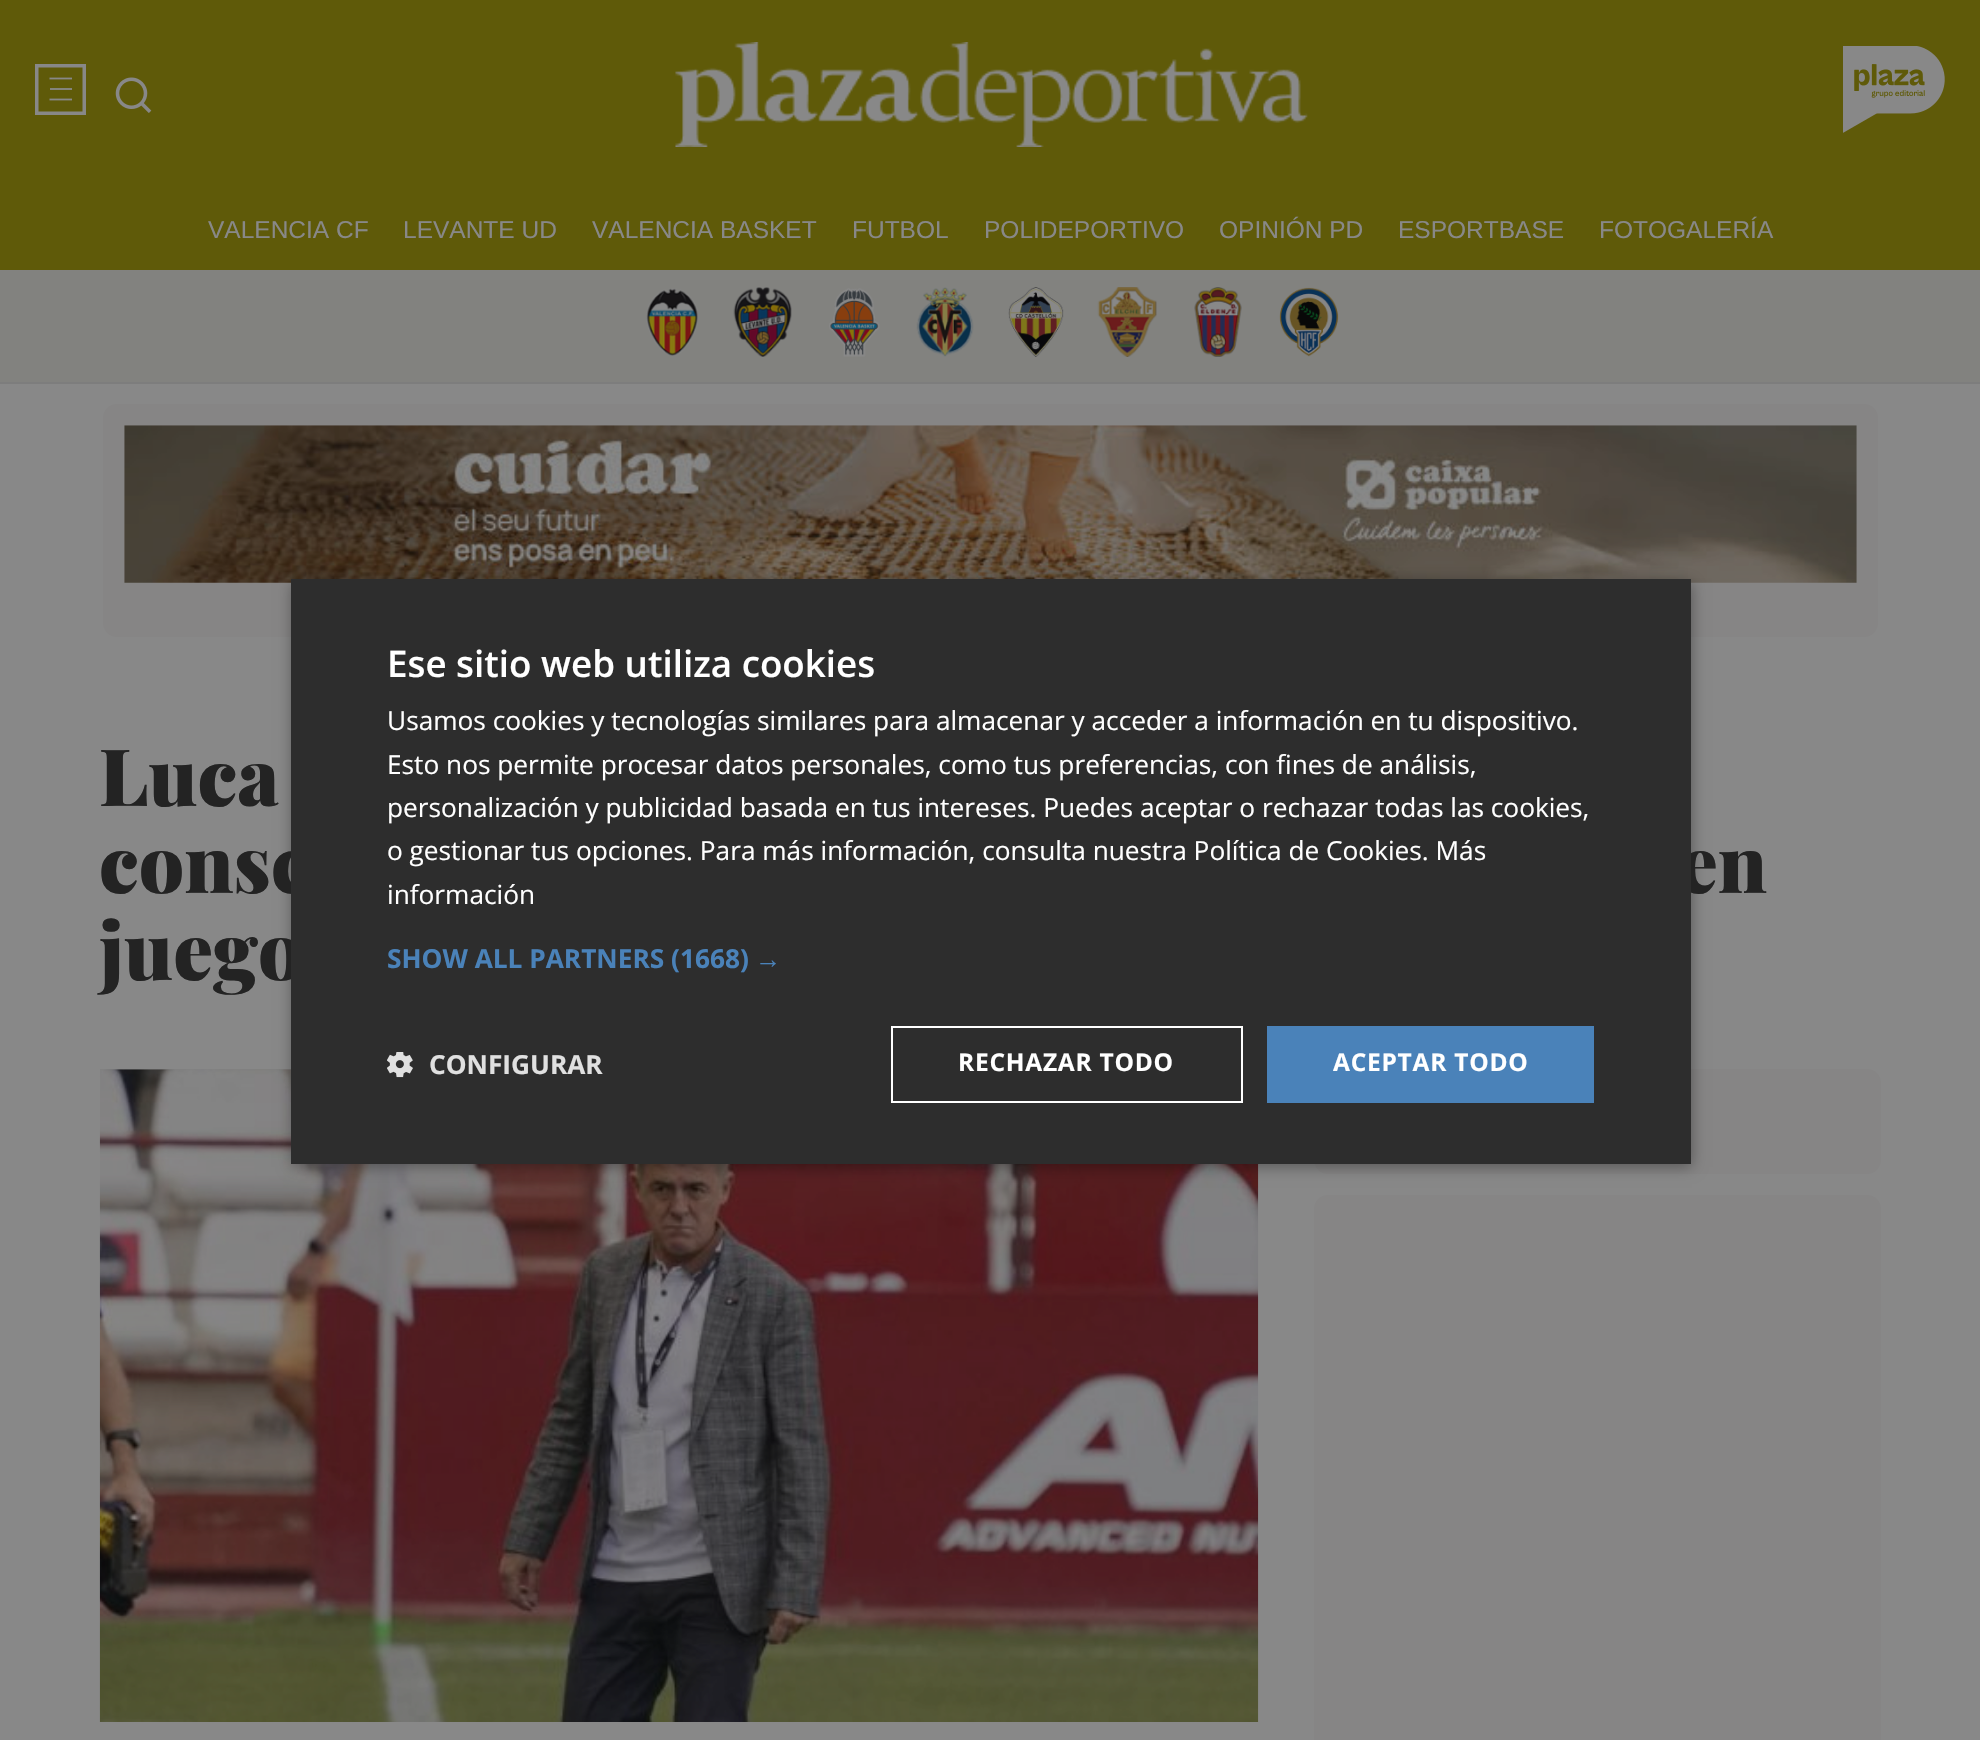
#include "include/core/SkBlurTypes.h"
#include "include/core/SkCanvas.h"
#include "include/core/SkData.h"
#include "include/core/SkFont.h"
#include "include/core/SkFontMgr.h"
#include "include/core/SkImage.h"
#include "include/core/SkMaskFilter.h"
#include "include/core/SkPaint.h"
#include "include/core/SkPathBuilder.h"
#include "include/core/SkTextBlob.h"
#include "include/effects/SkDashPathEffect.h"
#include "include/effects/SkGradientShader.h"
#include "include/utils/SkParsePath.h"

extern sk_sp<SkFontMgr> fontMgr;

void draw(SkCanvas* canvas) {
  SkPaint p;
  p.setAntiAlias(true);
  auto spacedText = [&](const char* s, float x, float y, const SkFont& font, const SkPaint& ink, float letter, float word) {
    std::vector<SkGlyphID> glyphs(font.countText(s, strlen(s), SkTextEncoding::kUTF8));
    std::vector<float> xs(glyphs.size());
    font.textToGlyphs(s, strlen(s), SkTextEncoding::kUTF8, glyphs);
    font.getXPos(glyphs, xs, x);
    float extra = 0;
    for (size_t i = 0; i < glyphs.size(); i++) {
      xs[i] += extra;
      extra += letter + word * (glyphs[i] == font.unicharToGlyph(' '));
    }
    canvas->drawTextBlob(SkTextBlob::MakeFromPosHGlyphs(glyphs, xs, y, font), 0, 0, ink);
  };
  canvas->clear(SkColorSetRGB(136, 136, 136));
  p.setColor(SkColorSetRGB(95, 90, 9));
  canvas->drawRect(SkRect::MakeLTRB(0, 0, 1980, 270), p);
  p.setColor(SkColorSetRGB(125, 125, 125));
  canvas->drawRect(SkRect::MakeLTRB(0, 382, 1980, 384), p);
  p.setStyle(SkPaint::kStroke_Style);
  p.setStrokeWidth(3.5f);
  p.setColor(SkColorSetRGB(136, 136, 136));
  canvas->drawRect(SkRect::MakeLTRB(36.75f, 65.75f, 84.25f, 113.25f), p);
  p.setStrokeWidth(1.8f);
  canvas->drawPath(SkPathBuilder().moveTo(49.5f, 78.5f).lineTo(72, 78.5f).detach(), p);
  p.setStyle(SkPaint::kFill_Style);
  p.setColor(SkColorSetRGB(132, 132, 124));
  canvas->drawRect(SkRect::MakeLTRB(50, 88, 72, 90), p);
  p.setStyle(SkPaint::kStroke_Style);
  p.setColor(SkColorSetRGB(136, 136, 136));
  canvas->drawPath(SkPathBuilder().moveTo(49.5f, 99.5f).lineTo(72, 99.5f).detach(), p);
  canvas->drawImageRect(SkImages::DeferredFromEncodedData(SkData::MakeFromFileName("images/1.png")), SkRect::MakeLTRB(115, 77, 152, 113), SkSamplingOptions());
  canvas->drawImageRect(SkImages::DeferredFromEncodedData(SkData::MakeFromFileName("images/2.png")), SkRect::MakeLTRB(675, 42, 1308, 147), SkSamplingOptions());
  canvas->drawImageRect(SkImages::DeferredFromEncodedData(SkData::MakeFromFileName("images/3.png")), SkRect::MakeLTRB(1843, 46, 1945, 133), SkSamplingOptions());
  p.setStyle(SkPaint::kFill_Style);
  p.setColor(SkColorSetRGB(130, 130, 127));
  canvas->drawRect(SkRect::MakeLTRB(0, 270, 1980, 382), p);
  canvas->drawImageRect(SkImages::DeferredFromEncodedData(SkData::MakeFromFileName("images/4.png")), SkRect::MakeLTRB(646, 288, 698, 356), SkSamplingOptions());
  canvas->drawImageRect(SkImages::DeferredFromEncodedData(SkData::MakeFromFileName("images/5.png")), SkRect::MakeLTRB(733, 287, 792, 357), SkSamplingOptions());
  canvas->drawImageRect(SkImages::DeferredFromEncodedData(SkData::MakeFromFileName("images/6.png")), SkRect::MakeLTRB(829, 288, 880, 357), SkSamplingOptions());
  canvas->drawImageRect(SkImages::DeferredFromEncodedData(SkData::MakeFromFileName("images/7.png")), SkRect::MakeLTRB(916, 287, 974, 357), SkSamplingOptions());
  canvas->drawImageRect(SkImages::DeferredFromEncodedData(SkData::MakeFromFileName("images/8.png")), SkRect::MakeLTRB(1008, 287, 1064, 357), SkSamplingOptions());
  canvas->drawImageRect(SkImages::DeferredFromEncodedData(SkData::MakeFromFileName("images/9.png")), SkRect::MakeLTRB(1097, 287, 1157, 357), SkSamplingOptions());
  canvas->drawImageRect(SkImages::DeferredFromEncodedData(SkData::MakeFromFileName("images/10.png")), SkRect::MakeLTRB(1194, 287, 1242, 357), SkSamplingOptions());
  canvas->drawImageRect(SkImages::DeferredFromEncodedData(SkData::MakeFromFileName("images/11.png")), SkRect::MakeLTRB(1279, 287, 1339, 357), SkSamplingOptions());
  p.setColor(SkColorSetRGB(134, 133, 133));
  canvas->drawRoundRect(SkRect::MakeLTRB(103, 404, 1878, 637), 14, 14, p);
  canvas->drawImageRect(SkImages::DeferredFromEncodedData(SkData::MakeFromFileName("images/13.png")), SkRect::MakeLTRB(124, 425, 1857, 583), SkSamplingOptions());
  p.setColor(SkColorSetRGB(129, 129, 129));
  canvas->drawRect(SkRect::MakeLTRB(100, 1069, 291, 1074), p);
  canvas->drawImageRect(SkImages::DeferredFromEncodedData(SkData::MakeFromFileName("images/14.png")), SkRect::MakeLTRB(99, 1069, 1259, 1722), SkSamplingOptions());
  p.setColor(SkColorSetRGB(134, 133, 133));
  canvas->drawRoundRect(SkRect::MakeLTRB(1314, 1069, 1881, 1174), 14, 14, p);
  p.setColor(SkColorSetARGB(89, 0, 0, 0));
  p.setMaskFilter(SkMaskFilter::MakeBlur(kNormal_SkBlurStyle, 7));
  canvas->drawRect(SkRect::MakeLTRB(292, 583, 1692, 1167), p);
  p.setMaskFilter(nullptr);
  p.setColor(SkColorSetRGB(134, 133, 133));
  canvas->drawRoundRect(SkRect::MakeLTRB(1314, 1195, 1881, 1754), 14, 14, p);
  SkFont font1(fontMgr->matchFamilyStyle("Liberation Sans", SkFontStyle::Normal()), 24.5f);
  font1.setSubpixel(true);
  p.setColor(SkColorSetRGB(136, 136, 136));
  canvas->drawString("VALENCIA CF", 208, 238, font1, p);
  canvas->drawString("LEVANTE UD", 403, 238, font1, p);
  canvas->drawString("VALENCIA BASKET", 592, 238, font1, p);
  canvas->drawString("FUTBOL", 852, 238, font1, p);
  canvas->drawString("POLIDEPORTIVO", 984, 238, font1, p);
  canvas->drawString("OPINIÓN PD", 1219, 238, font1, p);
  canvas->drawString("ESPORTBASE", 1398, 238, font1, p);
  canvas->drawString("FOTOGALERÍA", 1599, 238, font1, p);
  SkFont font2(fontMgr->matchFamilyStyle("Playfair Display", SkFontStyle(900, SkFontStyle::kNormal_Width, SkFontStyle::kUpright_Slant)), 79);
  font2.setSubpixel(true);
  p.setColor(SkColorSetRGB(35, 35, 35));
  canvas->drawString("Luca", 99, 806, font2, p);
  canvas->drawString("consc", 99, 893, font2, p);
  canvas->drawString("en", 1678, 893, font2, p);
  canvas->drawString("juego", 99, 980, font2, p);
  p.setColor(SkColorSetRGB(45, 45, 45));
  canvas->drawRect(SkRect::MakeLTRB(291, 579, 1691, 1164), p);
  SkFont font3(fontMgr->matchFamilyStyle("Open Sans", SkFontStyle(600, SkFontStyle::kNormal_Width, SkFontStyle::kUpright_Slant)), 36.75f);
  font3.setSubpixel(true);
  p.setColor(SK_ColorWHITE);
  canvas->drawString("Ese sitio web utiliza cookies", 387, 677, font3, p);
  canvas->drawImageRect(SkImages::DeferredFromEncodedData(SkData::MakeFromFileName("images/12.png")), SkRect::MakeLTRB(387, 1052, 413, 1078), SkSamplingOptions());
  SkFont font4(fontMgr->matchFamilyStyle("Open Sans", SkFontStyle::Bold()), 26.25f);
  font4.setSubpixel(true);
  p.setColor(SkColorSetRGB(224, 224, 224));
  canvas->drawString("CONFIGURAR", 429, 1074, font4, p);
  p.setStyle(SkPaint::kStroke_Style);
  p.setStrokeWidth(2);
  p.setColor(SK_ColorWHITE);
  canvas->drawRect(SkRect::MakeLTRB(892, 1027, 1242, 1102), p);
  SkFont font5(fontMgr->matchFamilyStyle("Open Sans", SkFontStyle::Bold()), 24.5f);
  font5.setSubpixel(true);
  p.setStyle(SkPaint::kFill_Style);
  spacedText("RECHAZAR TODO", 958, 1071, font5, p, 0.75f, 0);
  p.setColor(SkColorSetRGB(74, 130, 185));
  canvas->drawRect(SkRect::MakeLTRB(1267, 1026, 1594, 1103), p);
  p.setColor(SK_ColorWHITE);
  spacedText("ACEPTAR TODO", 1333, 1071, font5, p, 0.75f, 0);
  SkFont font6(fontMgr->matchFamilyStyle("Liberation Sans", SkFontStyle::Bold()), 26.25f);
  font6.setSubpixel(true);
  p.setColor(SkColorSetRGB(74, 130, 185));
  canvas->drawString("→", 755, 968, font6, p);
  canvas->drawString("SHOW ALL PARTNERS (1668)", 387, 968, font4, p);
  SkFont font7(fontMgr->matchFamilyStyle("Open Sans", SkFontStyle::Normal()), 26.25f);
  font7.setSubpixel(true);
  p.setColor(SK_ColorWHITE);
  canvas->drawString("información", 387, 904, font7, p);
  canvas->drawString("o gestionar tus opciones. Para más información, consulta nuestra Política de Cookies. Más", 387, 860, font7, p);
  canvas->drawString("personalización y publicidad basada en tus intereses. Puedes aceptar o rechazar todas las cookies,", 387, 817, font7, p);
  canvas->drawString("Esto nos permite procesar datos personales, como tus preferencias, con fines de análisis,", 387, 774, font7, p);
  canvas->drawString("Usamos cookies y tecnologías similares para almacenar y acceder a información en tu dispositivo.", 387, 730, font7, p);
}
